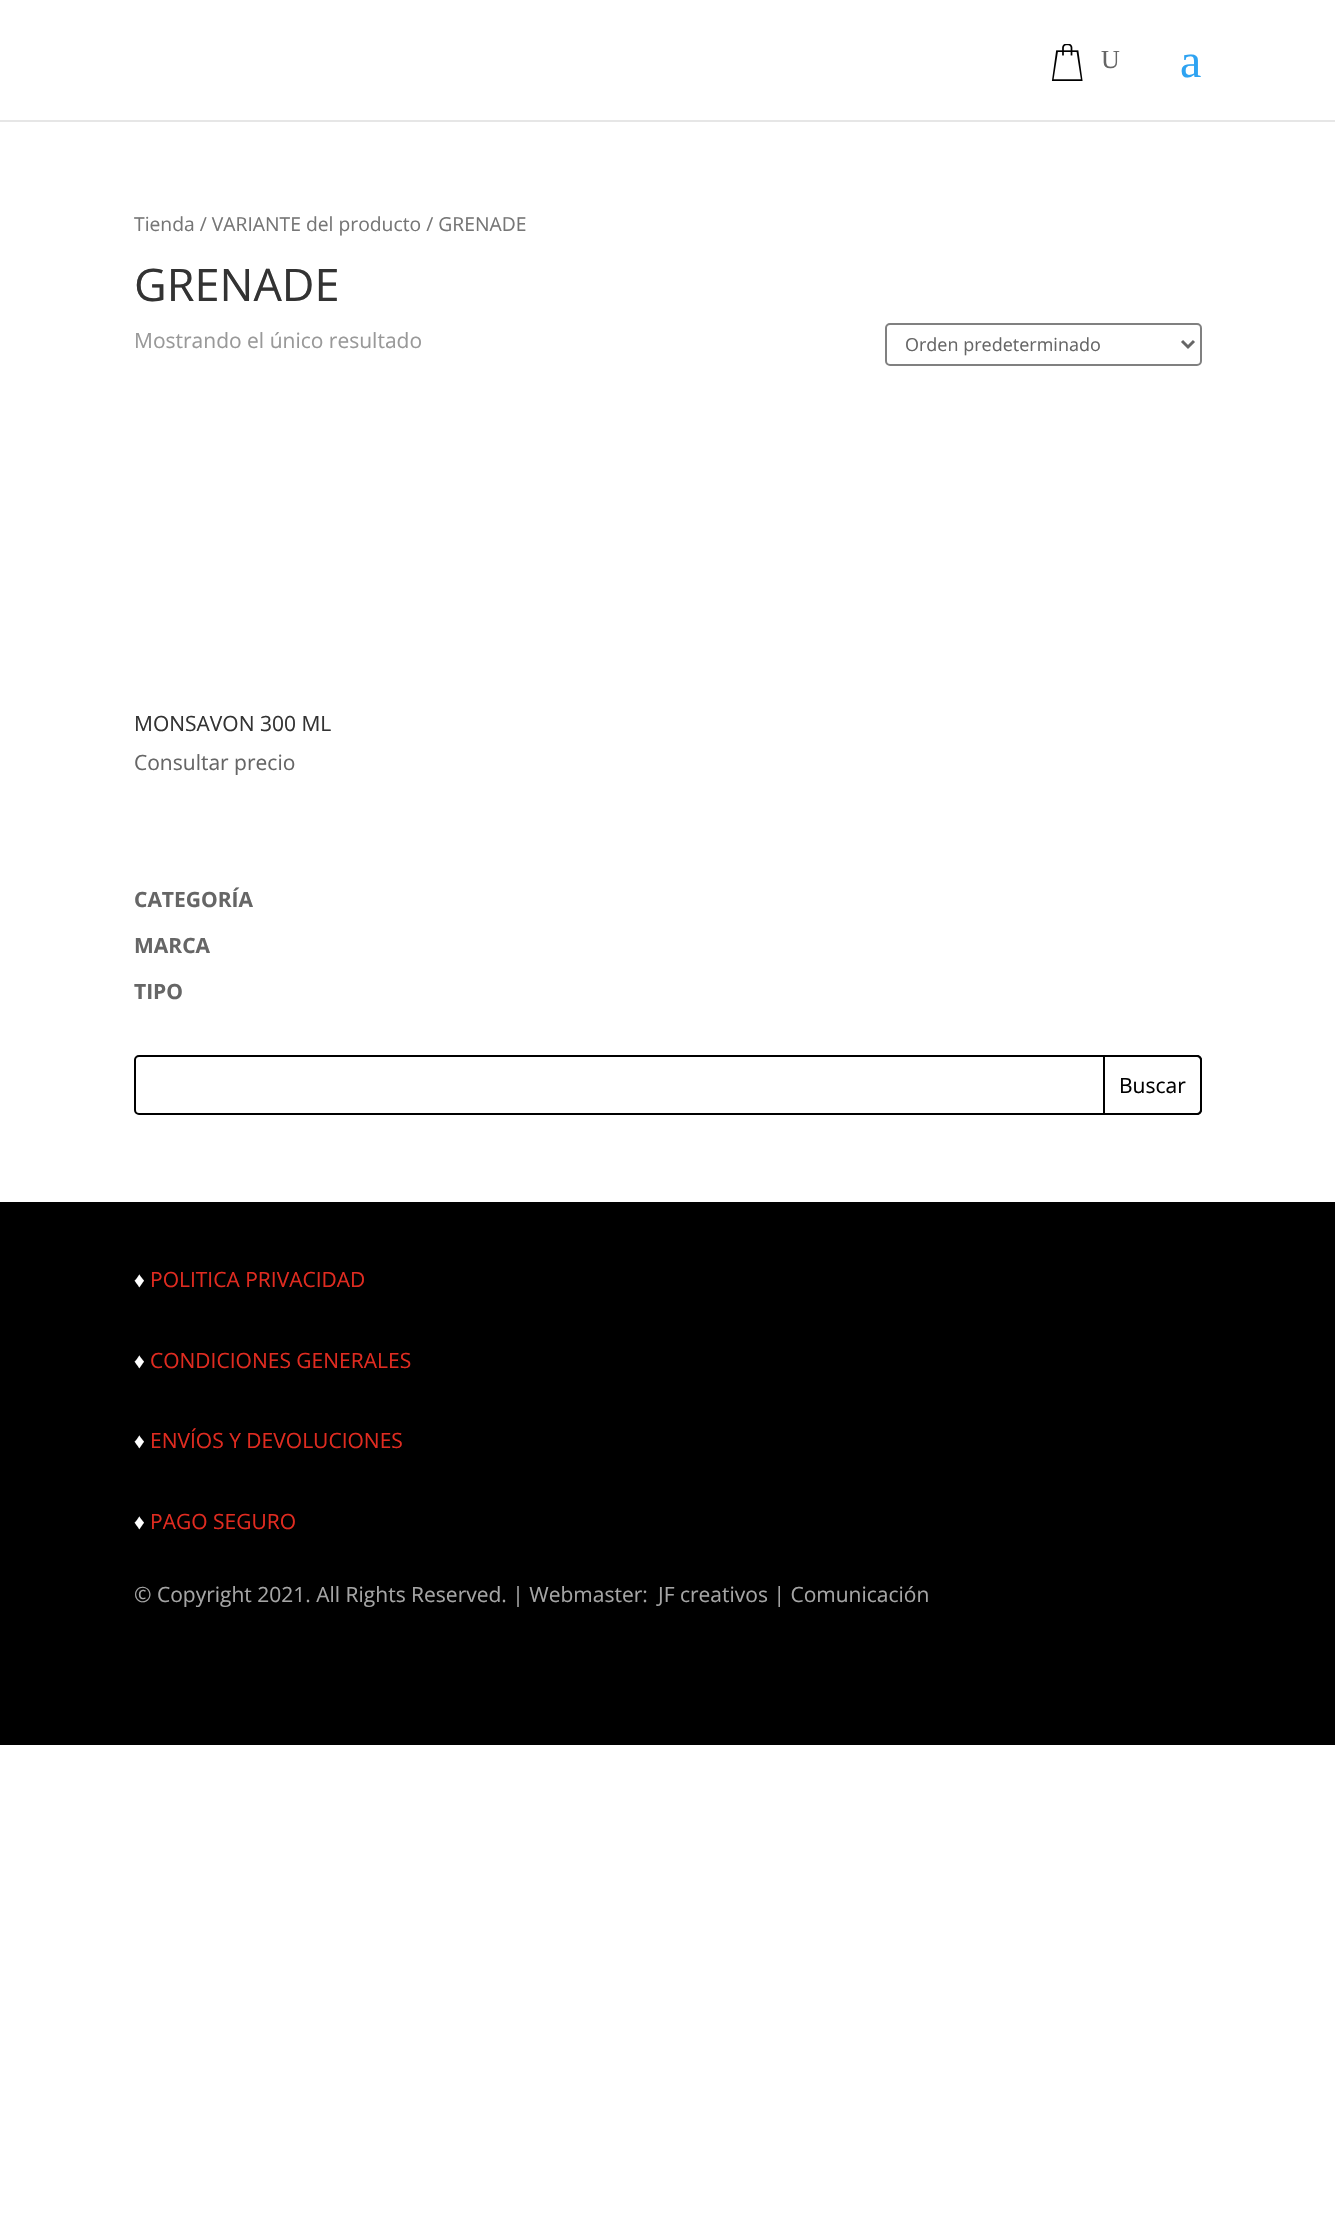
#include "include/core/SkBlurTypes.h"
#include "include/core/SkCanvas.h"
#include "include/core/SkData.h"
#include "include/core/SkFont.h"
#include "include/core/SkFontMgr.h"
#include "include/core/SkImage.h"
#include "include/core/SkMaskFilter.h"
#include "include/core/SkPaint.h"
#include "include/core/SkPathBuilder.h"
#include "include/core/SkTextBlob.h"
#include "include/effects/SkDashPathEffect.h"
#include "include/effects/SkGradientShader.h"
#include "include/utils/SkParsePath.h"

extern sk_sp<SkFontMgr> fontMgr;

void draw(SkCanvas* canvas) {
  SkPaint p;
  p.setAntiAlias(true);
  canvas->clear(SK_ColorWHITE);
  p.setColor(SkColorSetRGB(230, 230, 230));
  canvas->drawRect(SkRect::MakeLTRB(0, 120, 1335, 122), p);
  canvas->drawImageRect(SkImages::DeferredFromEncodedData(SkData::MakeFromFileName("images/1.png")), SkRect::MakeLTRB(1051, 44, 1083, 81), SkSamplingOptions());
  p.setStyle(SkPaint::kStroke_Style);
  p.setStrokeWidth(2);
  p.setColor(SkColorSetRGB(128, 128, 128));
  canvas->drawRoundRect(SkRect::MakeLTRB(886, 324, 1201, 365), 4, 4, p);
  p.setStrokeWidth(3);
  p.setColor(SkColorSetRGB(102, 102, 102));
  canvas->drawPath(SkPathBuilder().moveTo(1182, 341).lineTo(1188, 347).lineTo(1194, 341).detach(), p);
  p.setStrokeWidth(2);
  p.setColor(SK_ColorBLACK);
  canvas->drawRoundRect(SkRect::MakeLTRB(135, 1056, 1201, 1114), 4, 4, p);
  p.setStyle(SkPaint::kFill_Style);
  p.setColor(SK_ColorWHITE);
  canvas->drawPath(SkPathBuilder().moveTo(1104, 1056).lineTo(1197, 1056).cubicTo(1199, 1056, 1201, 1058, 1201, 1060).lineTo(1201, 1110).cubicTo(1201, 1112, 1199, 1114, 1197, 1114).lineTo(1104, 1114).close().detach(), p);
  p.setStyle(SkPaint::kStroke_Style);
  p.setColor(SK_ColorBLACK);
  canvas->drawPath(SkPathBuilder().moveTo(1104, 1056).lineTo(1197, 1056).cubicTo(1199, 1056, 1201, 1058, 1201, 1060).lineTo(1201, 1110).cubicTo(1201, 1112, 1199, 1114, 1197, 1114).lineTo(1104, 1114).close().detach(), p);
  p.setStyle(SkPaint::kFill_Style);
  canvas->drawRect(SkRect::MakeLTRB(0, 1202, 1335, 1745), p);
  SkFont font1(fontMgr->matchFamilyStyle("Liberation Serif", SkFontStyle::Normal()), 26);
  font1.setSubpixel(true);
  p.setColor(SkColorSetRGB(102, 102, 102));
  canvas->drawString("U", 1101, 68, font1, p);
  SkFont font2(fontMgr->matchFamilyStyle("Liberation Serif", SkFontStyle::Normal()), 48);
  font2.setSubpixel(true);
  p.setColor(SkColorSetRGB(46, 163, 242));
  canvas->drawString("a", 1180, 77, font2, p);
  SkFont font3(fontMgr->matchFamilyStyle("Open Sans", SkFontStyle::Normal()), 19.3f);
  font3.setSubpixel(true);
  p.setColor(SkColorSetRGB(118, 118, 118));
  canvas->drawString("Tienda / VARIANTE del producto / GRENADE", 134, 231, font3, p);
  SkFont font4(fontMgr->matchFamilyStyle("Open Sans", SkFontStyle::Normal()), 45);
  font4.setSubpixel(true);
  p.setColor(SkColorSetRGB(51, 51, 51));
  canvas->drawString("GRENADE", 134, 301, font4, p);
  SkFont font5(fontMgr->matchFamilyStyle("Open Sans", SkFontStyle::Normal()), 21);
  font5.setSubpixel(true);
  p.setColor(SkColorSetRGB(153, 153, 153));
  canvas->drawString("Mostrando el único resultado", 134, 348, font5, p);
  SkFont font6(fontMgr->matchFamilyStyle("Open Sans", SkFontStyle::Normal()), 18);
  font6.setSubpixel(true);
  p.setColor(SkColorSetRGB(102, 102, 102));
  canvas->drawString("Orden predeterminado", 905, 351, font6, p);
  p.setColor(SkColorSetRGB(51, 51, 51));
  canvas->drawString("MONSAVON 300 ML", 134, 731, font5, p);
  p.setColor(SkColorSetRGB(102, 102, 102));
  canvas->drawString("Consultar precio", 134, 770, font5, p);
  SkFont font7(fontMgr->matchFamilyStyle("Open Sans", SkFontStyle::Bold()), 21);
  font7.setSubpixel(true);
  canvas->drawString("CATEGORÍA", 134, 907, font7, p);
  canvas->drawString("MARCA", 134, 953, font7, p);
  canvas->drawString("TIPO", 134, 999, font7, p);
  p.setColor(SK_ColorBLACK);
  canvas->drawString("Buscar", 1119, 1093, font5, p);
  SkFont font8(fontMgr->matchFamilyStyle("Liberation Sans", SkFontStyle::Normal()), 21);
  font8.setSubpixel(true);
  p.setColor(SK_ColorWHITE);
  canvas->drawString("♦", 134, 1287, font8, p);
  p.setColor(SkColorSetRGB(224, 43, 32));
  canvas->drawString("POLITICA PRIVACIDAD", 150, 1287, font5, p);
  p.setColor(SK_ColorWHITE);
  canvas->drawString("♦", 134, 1368, font8, p);
  p.setColor(SkColorSetRGB(224, 43, 32));
  canvas->drawString("CONDICIONES GENERALES", 150, 1368, font5, p);
  p.setColor(SK_ColorWHITE);
  canvas->drawString("♦", 134, 1448, font8, p);
  p.setColor(SkColorSetRGB(224, 43, 32));
  canvas->drawString("ENVÍOS Y DEVOLUCIONES", 150, 1448, font5, p);
  p.setColor(SK_ColorWHITE);
  canvas->drawString("♦", 134, 1529, font8, p);
  p.setColor(SkColorSetRGB(224, 43, 32));
  canvas->drawString("PAGO SEGURO", 150, 1529, font5, p);
  p.setColor(SkColorSetRGB(165, 165, 165));
  canvas->drawString("© Copyright 2021. All Rights Reserved. | Webmaster:", 134, 1602, font5, p);
  canvas->drawString("JF creativos | Comunicación", 658, 1602, font5, p);
}
